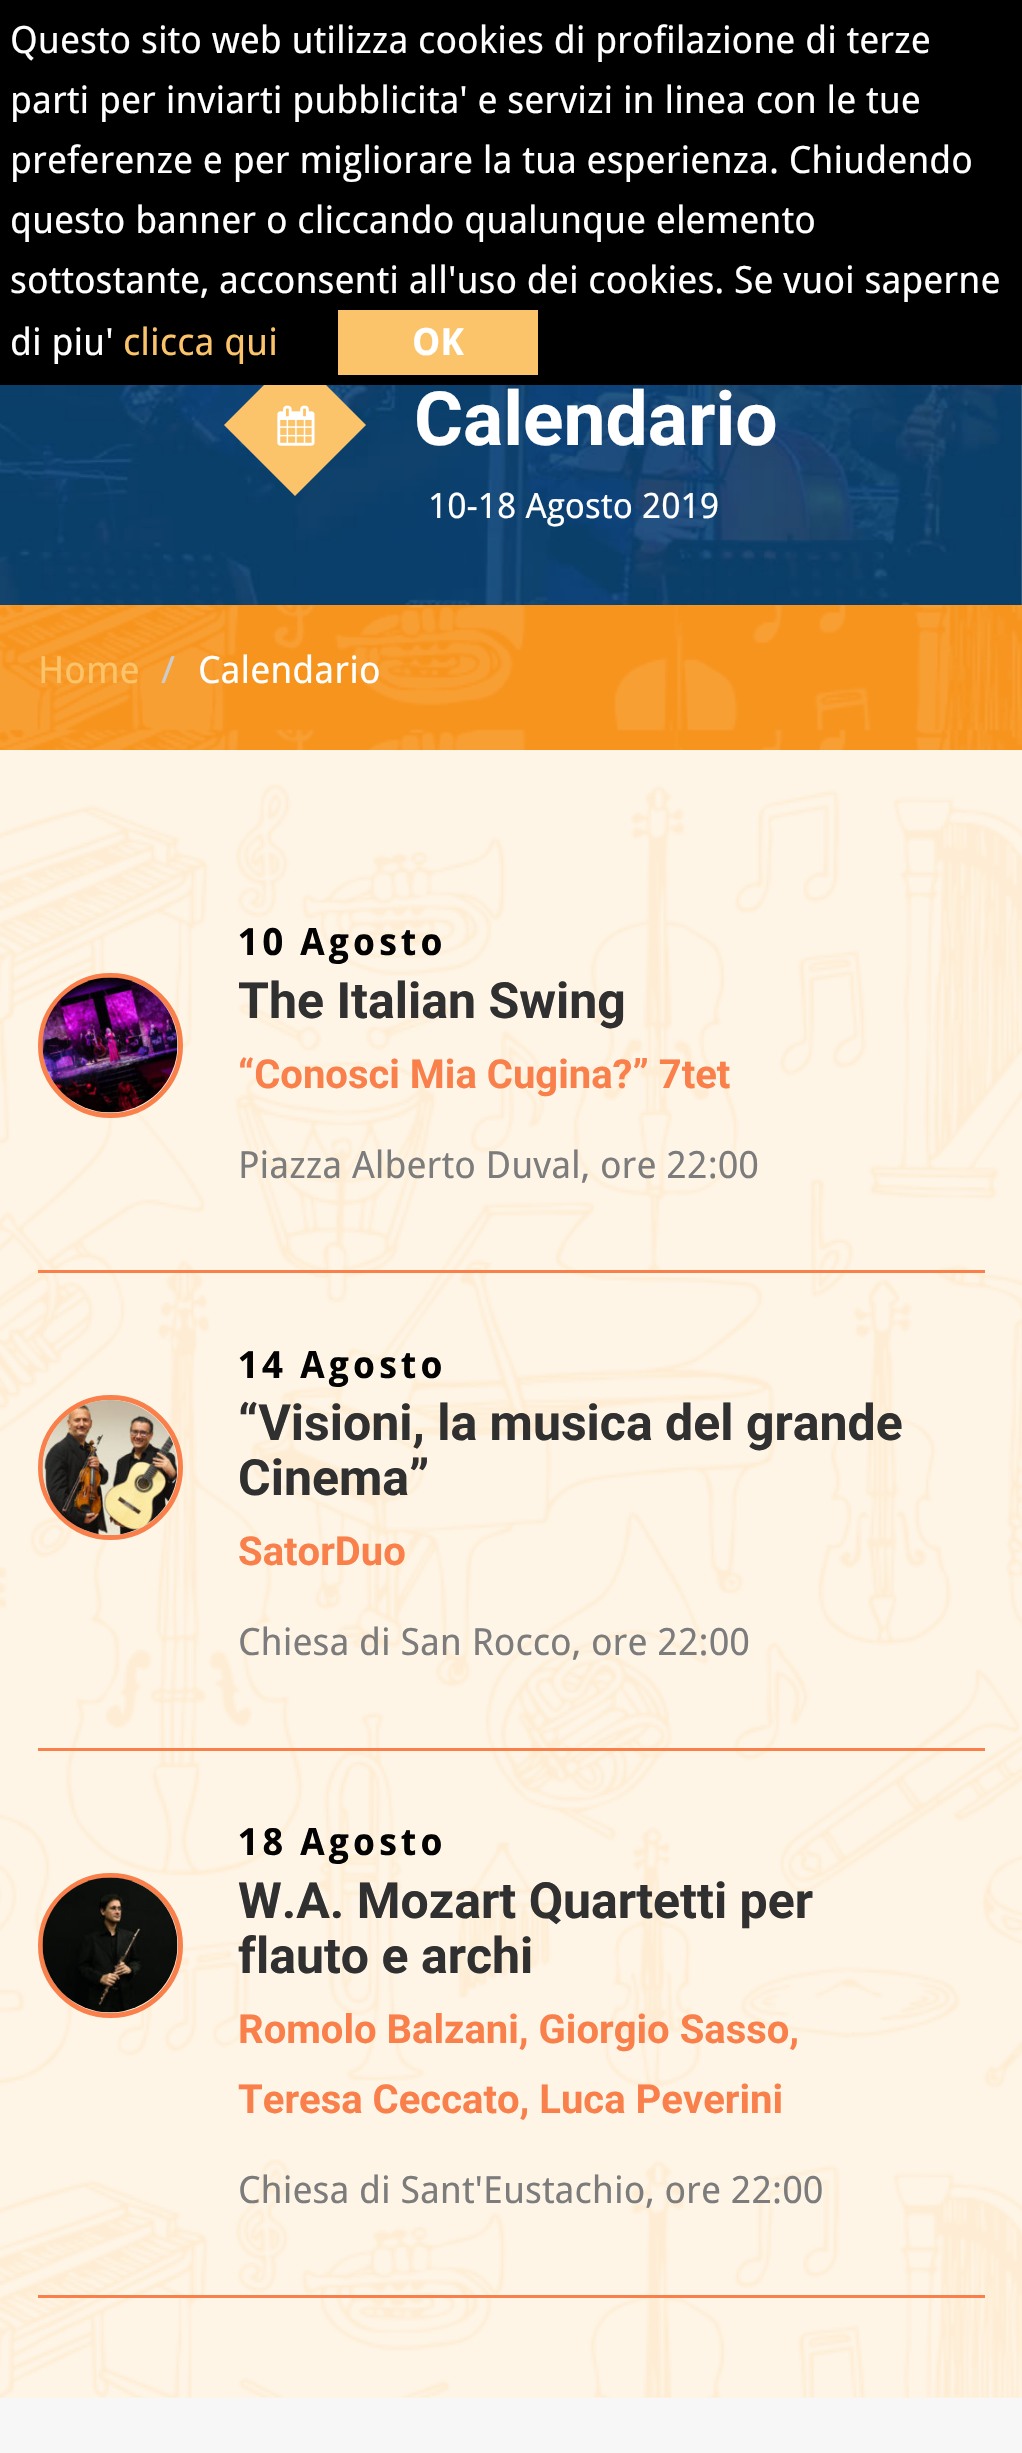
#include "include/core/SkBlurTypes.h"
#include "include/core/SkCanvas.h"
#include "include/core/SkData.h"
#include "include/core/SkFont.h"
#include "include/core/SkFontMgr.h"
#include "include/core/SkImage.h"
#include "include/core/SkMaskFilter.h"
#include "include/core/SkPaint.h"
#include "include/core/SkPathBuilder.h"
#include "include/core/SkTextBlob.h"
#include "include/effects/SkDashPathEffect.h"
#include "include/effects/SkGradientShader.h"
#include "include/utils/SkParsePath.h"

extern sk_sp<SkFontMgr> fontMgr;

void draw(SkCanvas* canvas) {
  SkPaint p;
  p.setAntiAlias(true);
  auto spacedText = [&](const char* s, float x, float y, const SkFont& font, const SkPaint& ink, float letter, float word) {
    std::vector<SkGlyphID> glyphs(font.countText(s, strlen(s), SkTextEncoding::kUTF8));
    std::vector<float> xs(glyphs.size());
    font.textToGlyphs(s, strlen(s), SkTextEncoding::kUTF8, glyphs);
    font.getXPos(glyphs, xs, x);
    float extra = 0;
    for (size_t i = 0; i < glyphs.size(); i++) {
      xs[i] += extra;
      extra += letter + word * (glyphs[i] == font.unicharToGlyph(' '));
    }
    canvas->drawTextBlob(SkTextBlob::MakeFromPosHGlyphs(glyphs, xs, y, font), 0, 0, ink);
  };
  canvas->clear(SK_ColorWHITE);
  canvas->drawImageRect(SkImages::DeferredFromEncodedData(SkData::MakeFromFileName("images/1.png")), SkRect::MakeLTRB(0, 385, 1022, 605), SkSamplingOptions());
  p.setColor(SkColorSetRGB(252, 196, 106));
  canvas->drawPath(SkPathBuilder().moveTo(295, 354).lineTo(366, 425).lineTo(295, 496).lineTo(224, 425).close().detach(), p);
  p.setColor(SK_ColorBLACK);
  canvas->drawRect(SkRect::MakeLTRB(0, 0, 1022, 385), p);
  p.setColor(SkColorSetRGB(252, 196, 106));
  canvas->drawRect(SkRect::MakeLTRB(338, 310, 538, 375), p);
  canvas->drawImageRect(SkImages::DeferredFromEncodedData(SkData::MakeFromFileName("images/2.png")), SkRect::MakeLTRB(277, 405, 315, 446), SkSamplingOptions());
  canvas->drawImageRect(SkImages::DeferredFromEncodedData(SkData::MakeFromFileName("images/3.png")), SkRect::MakeLTRB(0, 605, 1022, 750), SkSamplingOptions());
  p.setColor(SkColorSetRGB(254, 245, 231));
  canvas->drawRect(SkRect::MakeLTRB(0, 750, 1022, 2398), p);
  canvas->drawImageRect(SkImages::DeferredFromEncodedData(SkData::MakeFromFileName("images/4.png")), SkRect::MakeLTRB(0, 784, 1022, 2398), SkSamplingOptions());
  p.setColor(SkColorSetRGB(249, 127, 75));
  canvas->drawRect(SkRect::MakeLTRB(38, 1270, 985, 1273), p);
  p.setStyle(SkPaint::kStroke_Style);
  p.setStrokeWidth(5);
  canvas->drawCircle(110.5f, 1045.5f, 70, p);
  canvas->drawImageRect(SkImages::DeferredFromEncodedData(SkData::MakeFromFileName("images/5.png")), SkRect::MakeLTRB(42, 977, 178, 1113), SkSamplingOptions());
  p.setStyle(SkPaint::kFill_Style);
  canvas->drawRect(SkRect::MakeLTRB(38, 1748, 985, 1751), p);
  p.setStyle(SkPaint::kStroke_Style);
  canvas->drawCircle(110.5f, 1467.5f, 70, p);
  canvas->drawImageRect(SkImages::DeferredFromEncodedData(SkData::MakeFromFileName("images/6.png")), SkRect::MakeLTRB(42, 1400, 178, 1535), SkSamplingOptions());
  p.setStyle(SkPaint::kFill_Style);
  canvas->drawRect(SkRect::MakeLTRB(38, 2295, 985, 2298), p);
  p.setStyle(SkPaint::kStroke_Style);
  canvas->drawCircle(110.5f, 1945.5f, 70, p);
  canvas->drawImageRect(SkImages::DeferredFromEncodedData(SkData::MakeFromFileName("images/7.png")), SkRect::MakeLTRB(42, 1877, 178, 2013), SkSamplingOptions());
  p.setStyle(SkPaint::kFill_Style);
  p.setColor(SkColorSetRGB(247, 247, 247));
  canvas->drawRect(SkRect::MakeLTRB(0, 2398, 1022, 2453), p);
  SkFont font1(fontMgr->matchFamilyStyle("Droid Sans", SkFontStyle::Normal()), 37.5f);
  font1.setSubpixel(true);
  p.setColor(SK_ColorWHITE);
  canvas->drawString("Questo sito web utilizza cookies di profilazione di terze", 10, 53, font1, p);
  canvas->drawString("parti per inviarti pubblicita' e servizi in linea con le tue", 10, 113, font1, p);
  canvas->drawString("preferenze e per migliorare la tua esperienza. Chiudendo", 10, 173, font1, p);
  canvas->drawString("questo banner o cliccando qualunque elemento", 10, 233, font1, p);
  canvas->drawString("sottostante, acconsenti all'uso dei cookies. Se vuoi saperne", 10, 293, font1, p);
  canvas->drawString("di piu'", 10, 355, font1, p);
  p.setColor(SkColorSetRGB(252, 196, 106));
  canvas->drawString("clicca qui", 123, 355, font1, p);
  SkFont font2(fontMgr->matchFamilyStyle("Droid Sans", SkFontStyle::Bold()), 37.5f);
  font2.setSubpixel(true);
  p.setColor(SK_ColorWHITE);
  canvas->drawString("OK", 412, 355, font2, p);
  SkFont font3(fontMgr->matchFamilyStyle("Roboto", SkFontStyle::Bold()), 75);
  font3.setSubpixel(true);
  canvas->drawString("Calendario", 414, 445, font3, p);
  SkFont font4(fontMgr->matchFamilyStyle("Droid Sans", SkFontStyle::Normal()), 35);
  font4.setSubpixel(true);
  canvas->drawString("10-18 Agosto 2019", 428, 518, font4, p);
  p.setColor(SkColorSetRGB(252, 196, 106));
  canvas->drawString("Home", 38, 683, font1, p);
  p.setColor(SkColorSetRGB(204, 204, 204));
  canvas->drawString("/", 161, 683, font1, p);
  p.setColor(SK_ColorWHITE);
  canvas->drawString("Calendario", 198, 683, font1, p);
  p.setColor(SkColorSetRGB(3, 3, 3));
  spacedText("10 Agosto", 238, 955, font2, p, 3.75f, 0);
  SkFont font5(fontMgr->matchFamilyStyle("Roboto", SkFontStyle::Bold()), 50);
  font5.setSubpixel(true);
  p.setColor(SkColorSetRGB(48, 48, 48));
  canvas->drawString("The Italian Swing", 238, 1018, font5, p);
  SkFont font6(fontMgr->matchFamilyStyle("Roboto", SkFontStyle::Bold()), 40);
  font6.setSubpixel(true);
  p.setColor(SkColorSetRGB(249, 127, 75));
  canvas->drawString("“Conosci Mia Cugina?” 7tet", 238, 1088, font6, p);
  p.setColor(SkColorSetRGB(124, 124, 124));
  canvas->drawString("Piazza Alberto Duval, ore 22:00", 238, 1178, font1, p);
  p.setColor(SkColorSetRGB(3, 3, 3));
  spacedText("14 Agosto", 238, 1378, font2, p, 3.75f, 0);
  p.setColor(SkColorSetRGB(48, 48, 48));
  canvas->drawString("“Visioni, la musica del grande", 238, 1440, font5, p);
  canvas->drawString("Cinema”", 238, 1495, font5, p);
  p.setColor(SkColorSetRGB(249, 127, 75));
  canvas->drawString("SatorDuo", 238, 1565, font6, p);
  p.setColor(SkColorSetRGB(124, 124, 124));
  canvas->drawString("Chiesa di San Rocco, ore 22:00", 238, 1655, font1, p);
  p.setColor(SkColorSetRGB(3, 3, 3));
  spacedText("18 Agosto", 238, 1855, font2, p, 3.75f, 0);
  p.setColor(SkColorSetRGB(48, 48, 48));
  canvas->drawString("W.A. Mozart Quartetti per", 238, 1918, font5, p);
  canvas->drawString("flauto e archi", 238, 1973, font5, p);
  p.setColor(SkColorSetRGB(249, 127, 75));
  canvas->drawString("Romolo Balzani, Giorgio Sasso,", 238, 2043, font6, p);
  canvas->drawString("Teresa Ceccato, Luca Peverini", 238, 2113, font6, p);
  p.setColor(SkColorSetRGB(124, 124, 124));
  canvas->drawString("Chiesa di Sant'Eustachio, ore 22:00", 238, 2203, font1, p);
}
